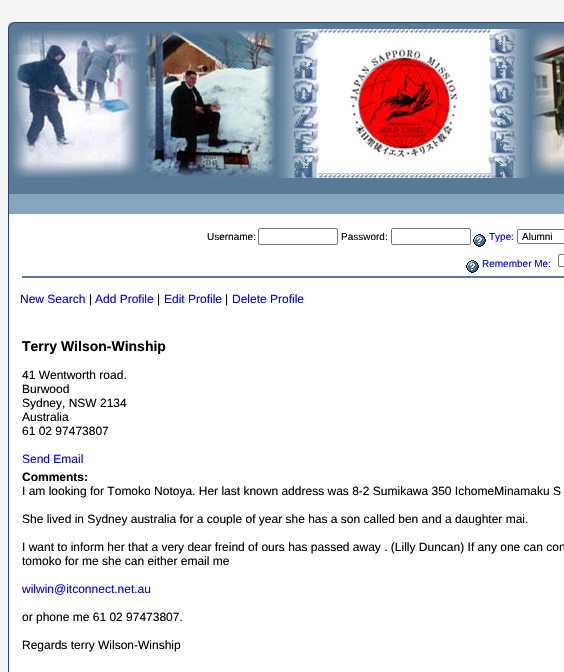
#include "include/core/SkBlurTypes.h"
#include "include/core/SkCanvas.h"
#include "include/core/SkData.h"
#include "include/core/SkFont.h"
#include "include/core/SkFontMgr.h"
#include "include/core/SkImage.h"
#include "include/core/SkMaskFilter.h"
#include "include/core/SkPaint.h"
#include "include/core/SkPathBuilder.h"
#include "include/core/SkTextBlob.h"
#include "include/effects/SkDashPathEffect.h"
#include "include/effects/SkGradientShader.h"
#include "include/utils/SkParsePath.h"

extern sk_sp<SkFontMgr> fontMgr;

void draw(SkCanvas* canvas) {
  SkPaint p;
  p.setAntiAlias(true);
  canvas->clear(SkColorSetRGB(245, 245, 245));
  canvas->drawImageRect(SkImages::DeferredFromEncodedData(SkData::MakeFromFileName("images/1.png")), SkRect::MakeLTRB(8, 22, 564, 29), SkSamplingOptions());
  p.setColor(SkColorSetRGB(38, 72, 101));
  canvas->drawRect(SkRect::MakeLTRB(8, 29, 9, 672), p);
  p.setColor(SkColorSetRGB(89, 122, 150));
  canvas->drawRect(SkRect::MakeLTRB(9, 29, 564, 194), p);
  canvas->drawImageRect(SkImages::DeferredFromEncodedData(SkData::MakeFromFileName("images/2.png")), SkRect::MakeLTRB(10, 29, 564, 178), SkSamplingOptions());
  p.setColor(SkColorSetRGB(135, 165, 191));
  canvas->drawRect(SkRect::MakeLTRB(9, 194, 564, 214), p);
  p.setColor(SK_ColorWHITE);
  canvas->drawRect(SkRect::MakeLTRB(9, 214, 564, 672), p);
  p.setStyle(SkPaint::kStroke_Style);
  p.setStrokeWidth(1);
  p.setColor(SkColorSetRGB(118, 118, 118));
  canvas->drawRoundRect(SkRect::MakeLTRB(258.5f, 228.5f, 337.5f, 244.5f), 1.5f, 1.5f, p);
  canvas->drawRoundRect(SkRect::MakeLTRB(391.5f, 228.5f, 470.5f, 244.5f), 1.5f, 1.5f, p);
  canvas->drawImageRect(SkImages::DeferredFromEncodedData(SkData::MakeFromFileName("images/3.png")), SkRect::MakeLTRB(473, 234, 486, 247), SkSamplingOptions());
  canvas->drawRoundRect(SkRect::MakeLTRB(517.5f, 229.5f, 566.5f, 243.5f), 1.5f, 1.5f, p);
  canvas->drawImageRect(SkImages::DeferredFromEncodedData(SkData::MakeFromFileName("images/3.png")), SkRect::MakeLTRB(466, 260, 479, 273), SkSamplingOptions());
  canvas->drawRoundRect(SkRect::MakeLTRB(558.5f, 254.5f, 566.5f, 266.5f), 1.5f, 1.5f, p);
  p.setStyle(SkPaint::kFill_Style);
  p.setColor(SkColorSetRGB(89, 122, 150));
  canvas->drawRect(SkRect::MakeLTRB(22, 276, 564, 278), p);
  SkFont font1(fontMgr->matchFamilyStyle("Liberation Sans", SkFontStyle::Normal()), 10);
  font1.setSubpixel(true);
  p.setColor(SK_ColorBLACK);
  canvas->drawString("Username:", 207, 240, font1, p);
  canvas->drawString("Password:", 341, 240, font1, p);
  p.setColor(SkColorSetRGB(0, 0, 255));
  canvas->drawString("Type", 489, 240, font1, p);
  p.setColor(SK_ColorBLACK);
  canvas->drawString(":", 511, 240, font1, p);
  canvas->drawString("Alumni", 522, 240, font1, p);
  p.setColor(SkColorSetRGB(0, 0, 255));
  canvas->drawString("Remember Me", 482, 267, font1, p);
  p.setColor(SK_ColorBLACK);
  canvas->drawString(":", 548, 267, font1, p);
  SkFont font2(fontMgr->matchFamilyStyle("Liberation Sans", SkFontStyle::Normal()), 12);
  font2.setSubpixel(true);
  p.setColor(SkColorSetRGB(0, 0, 255));
  canvas->drawString("New Search", 20, 303, font2, p);
  p.setColor(SK_ColorBLACK);
  canvas->drawString("|", 89, 303, font2, p);
  p.setColor(SkColorSetRGB(0, 0, 255));
  canvas->drawString("Add Profile", 95, 303, font2, p);
  p.setColor(SK_ColorBLACK);
  canvas->drawString("|", 157, 303, font2, p);
  p.setColor(SkColorSetRGB(0, 0, 255));
  canvas->drawString("Edit Profile", 164, 303, font2, p);
  p.setColor(SK_ColorBLACK);
  canvas->drawString("|", 225, 303, font2, p);
  p.setColor(SkColorSetRGB(0, 0, 255));
  canvas->drawString("Delete Profile", 232, 303, font2, p);
  SkFont font3(fontMgr->matchFamilyStyle("Liberation Sans", SkFontStyle::Bold()), 14);
  font3.setSubpixel(true);
  p.setColor(SK_ColorBLACK);
  canvas->drawString("Terry Wilson-Winship", 22, 351, font3, p);
  canvas->drawString("41 Wentworth road.", 22, 379, font2, p);
  canvas->drawString("Burwood", 22, 393, font2, p);
  canvas->drawString("Sydney, NSW 2134", 22, 407, font2, p);
  canvas->drawString("Australia", 22, 421, font2, p);
  canvas->drawString("61 02 97473807", 22, 435, font2, p);
  p.setColor(SkColorSetRGB(0, 0, 255));
  canvas->drawString("Send Email", 22, 463, font2, p);
  SkFont font4(fontMgr->matchFamilyStyle("Liberation Sans", SkFontStyle::Bold()), 12);
  font4.setSubpixel(true);
  p.setColor(SK_ColorBLACK);
  canvas->drawString("Comments:", 22, 481, font4, p);
  canvas->drawString("I am looking for Tomoko Notoya. Her last known address was 8-2 Sumikawa 350 IchomeMinamaku S", 22, 495, font2, p);
  canvas->drawString("She lived in Sydney australia for a couple of year she has a son called ben and a daughter mai.", 22, 523, font2, p);
  canvas->drawString("I want to inform her that a very dear freind of ours has passed away . (Lilly Duncan) If any one can con", 22, 551, font2, p);
  canvas->drawString("tomoko for me she can either email me", 22, 565, font2, p);
  p.setColor(SkColorSetRGB(0, 0, 255));
  canvas->drawString("wilwin@itconnect.net.au", 22, 593, font2, p);
  p.setColor(SK_ColorBLACK);
  canvas->drawString("or phone me 61 02 97473807.", 22, 621, font2, p);
  canvas->drawString("Regards terry Wilson-Winship", 22, 649, font2, p);
}
